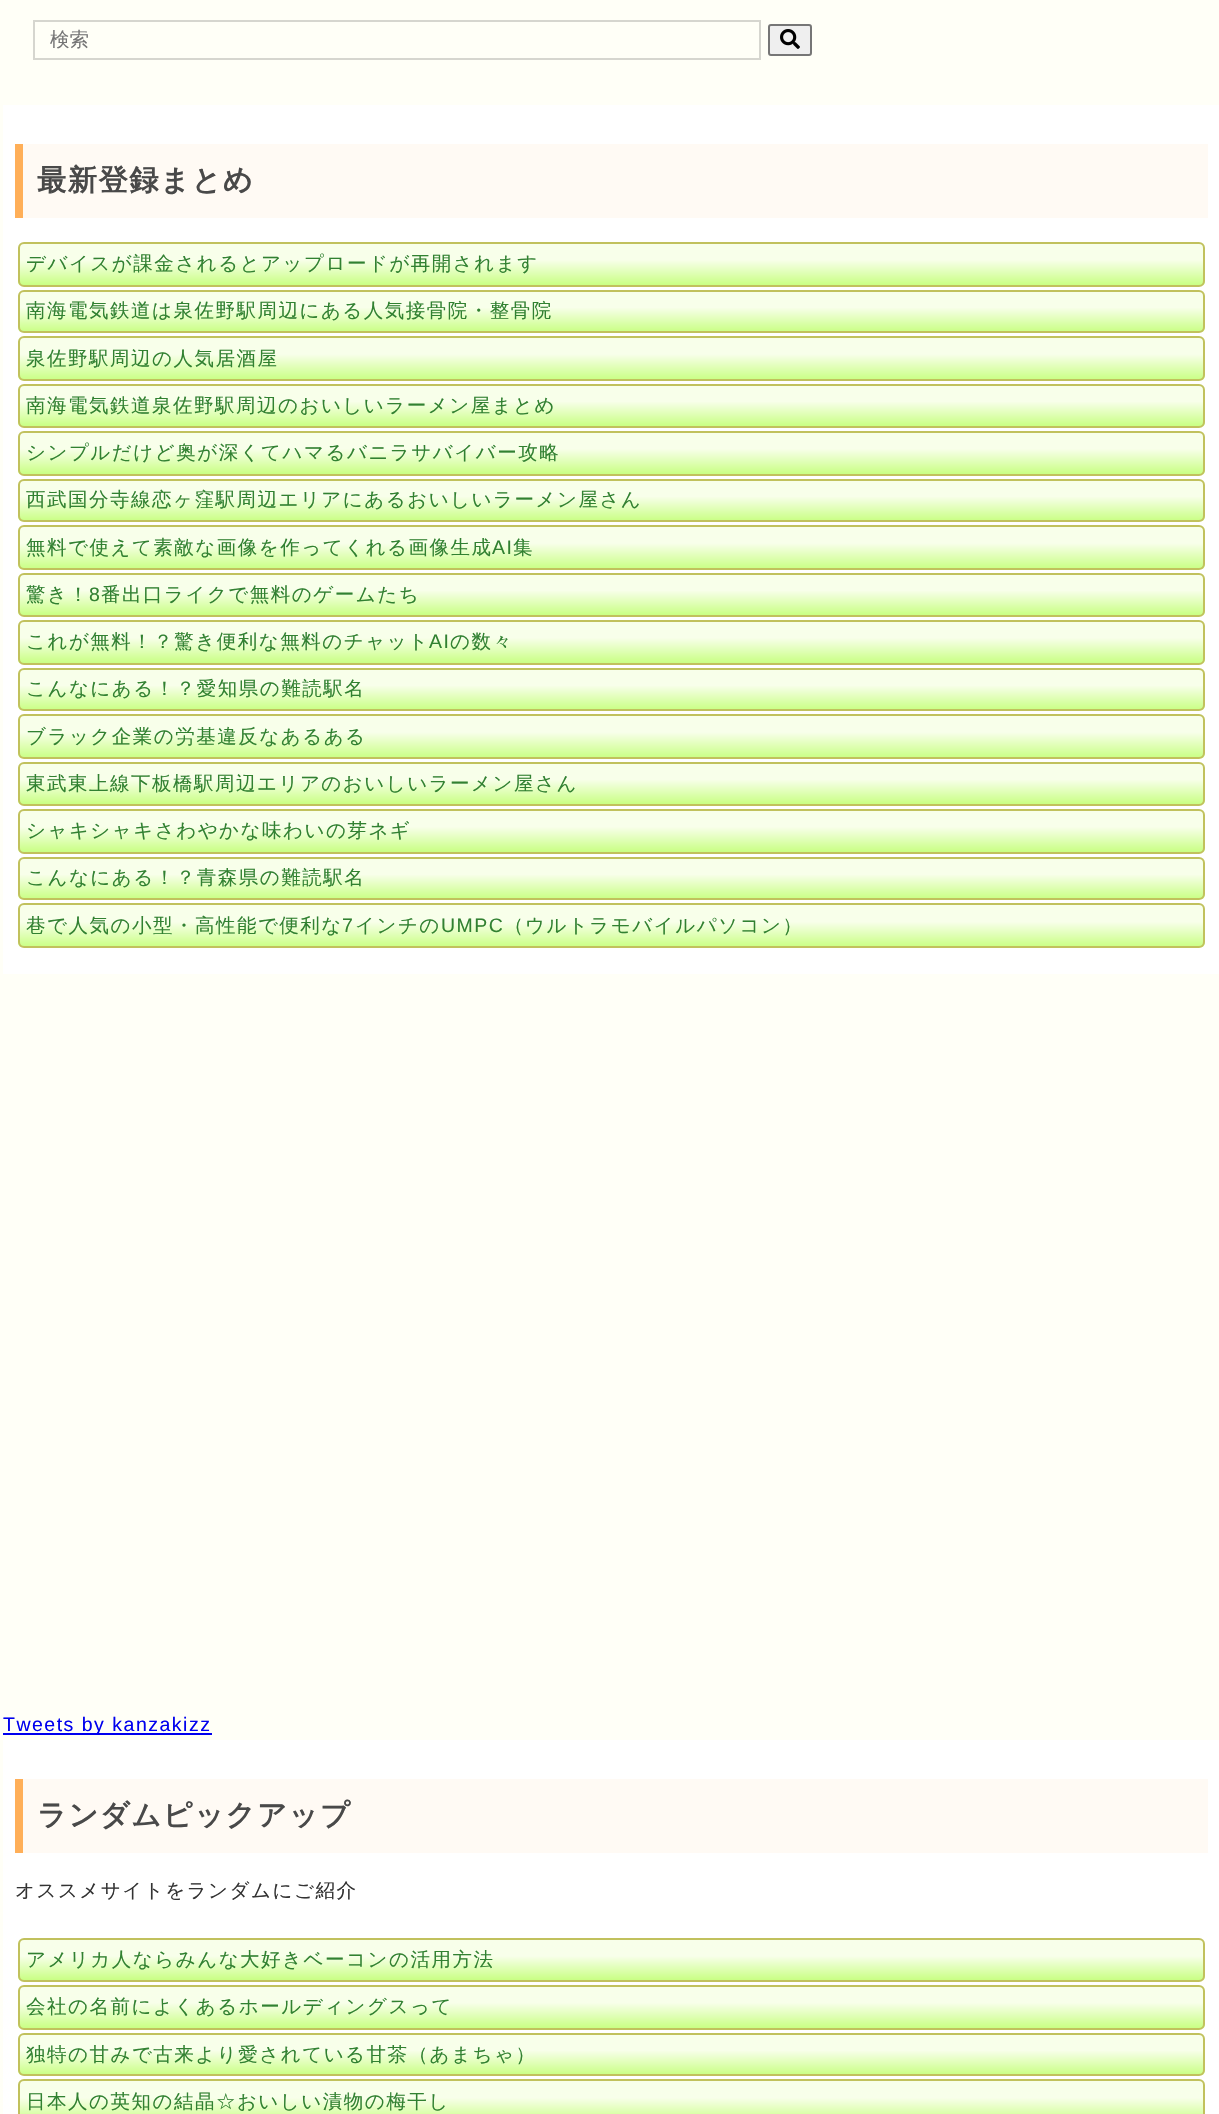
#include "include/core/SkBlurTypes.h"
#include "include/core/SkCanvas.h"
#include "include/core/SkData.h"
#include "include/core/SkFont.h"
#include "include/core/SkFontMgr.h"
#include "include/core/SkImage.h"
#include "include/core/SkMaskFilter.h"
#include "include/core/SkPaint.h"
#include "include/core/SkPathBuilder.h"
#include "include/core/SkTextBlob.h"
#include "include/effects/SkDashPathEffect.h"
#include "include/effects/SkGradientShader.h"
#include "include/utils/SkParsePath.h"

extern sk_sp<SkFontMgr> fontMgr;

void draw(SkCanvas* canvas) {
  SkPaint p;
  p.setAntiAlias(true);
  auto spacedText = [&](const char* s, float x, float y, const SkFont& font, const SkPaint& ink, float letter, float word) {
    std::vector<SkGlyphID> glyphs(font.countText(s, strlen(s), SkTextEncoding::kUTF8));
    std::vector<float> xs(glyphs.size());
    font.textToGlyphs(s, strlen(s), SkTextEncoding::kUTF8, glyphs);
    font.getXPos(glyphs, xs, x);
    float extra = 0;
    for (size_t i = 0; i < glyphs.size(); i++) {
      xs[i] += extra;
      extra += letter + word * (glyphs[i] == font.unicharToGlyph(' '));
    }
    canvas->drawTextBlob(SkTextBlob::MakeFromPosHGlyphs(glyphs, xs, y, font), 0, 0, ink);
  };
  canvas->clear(SkColorSetRGB(255, 255, 247));
  p.setStyle(SkPaint::kStroke_Style);
  p.setStrokeWidth(2);
  p.setColor(SkColorSetRGB(214, 214, 207));
  canvas->drawRect(SkRect::MakeLTRB(34, 21, 760, 59), p);
  p.setStyle(SkPaint::kFill_Style);
  p.setColor(SkColorSetRGB(239, 239, 239));
  canvas->drawRoundRect(SkRect::MakeLTRB(769, 25, 811, 55), 2, 2, p);
  p.setStyle(SkPaint::kStroke_Style);
  p.setColor(SkColorSetRGB(118, 118, 118));
  canvas->drawRoundRect(SkRect::MakeLTRB(769, 25, 811, 55), 2, 2, p);
  canvas->drawImageRect(SkImages::DeferredFromEncodedData(SkData::MakeFromFileName("images/1.png")), SkRect::MakeLTRB(780, 29, 800, 49), SkSamplingOptions());
  p.setStyle(SkPaint::kFill_Style);
  p.setColor(SK_ColorWHITE);
  canvas->drawRect(SkRect::MakeLTRB(3, 105, 1219, 974), p);
  p.setColor(SkColorSetRGB(255, 250, 244));
  canvas->drawRect(SkRect::MakeLTRB(23, 144, 1208, 218), p);
  p.setColor(SkColorSetRGB(255, 175, 88));
  canvas->drawRect(SkRect::MakeLTRB(15, 144, 23, 218), p);
  canvas->save();
  canvas->clipPath(SkPathBuilder().moveTo(24, 242).lineTo(1199, 242).cubicTo(1202.5f, 242, 1205, 244.5f, 1205, 248).lineTo(1205, 281).cubicTo(1205, 284.5f, 1202.5f, 287, 1199, 287).lineTo(24, 287).cubicTo(20.5f, 287, 18, 284.5f, 18, 281).lineTo(18, 248).cubicTo(18, 244.5f, 20.5f, 242, 24, 242).close().detach(), true);
  {
    const SkColor colors[] = {SkColorSetRGB(248, 255, 234), SkColorSetRGB(201, 255, 132)};
    const float stops[] = {0.4f, 1};
    const SkPoint ends[] = {{611, 243}, {611, 285}};
    p.setShader(SkGradientShader::MakeLinear(ends, colors, stops, 2, SkTileMode::kClamp));
    p.setAlpha(255);
  }
  canvas->drawRect(SkRect::MakeLTRB(18, 243, 1205, 285), p);
  canvas->restore();
  p.setStyle(SkPaint::kStroke_Style);
  p.setShader(nullptr);
  p.setColor(SkColorSetRGB(193, 193, 93));
  canvas->drawRoundRect(SkRect::MakeLTRB(19, 243, 1204, 286), 5, 5, p);
  canvas->save();
  canvas->clipPath(SkPathBuilder().moveTo(24, 290).lineTo(1199, 290).cubicTo(1202.5f, 290, 1205, 292.5f, 1205, 296).lineTo(1205, 327).cubicTo(1205, 330.5f, 1202.5f, 333, 1199, 333).lineTo(24, 333).cubicTo(20.5f, 333, 18, 330.5f, 18, 327).lineTo(18, 296).cubicTo(18, 292.5f, 20.5f, 290, 24, 290).close().detach(), true);
  p.setStyle(SkPaint::kFill_Style);
  {
    const SkColor colors[] = {SkColorSetRGB(248, 255, 234), SkColorSetRGB(201, 255, 132)};
    const float stops[] = {0.4f, 1};
    const SkPoint ends[] = {{611, 291}, {611, 332}};
    p.setShader(SkGradientShader::MakeLinear(ends, colors, stops, 2, SkTileMode::kClamp));
    p.setAlpha(255);
  }
  canvas->drawRect(SkRect::MakeLTRB(18, 291, 1205, 332), p);
  canvas->restore();
  p.setStyle(SkPaint::kStroke_Style);
  p.setShader(nullptr);
  p.setColor(SkColorSetRGB(193, 193, 93));
  canvas->drawRoundRect(SkRect::MakeLTRB(19, 291, 1204, 332), 5, 5, p);
  canvas->save();
  canvas->clipPath(SkPathBuilder().moveTo(24, 336).lineTo(1199, 336).cubicTo(1202.5f, 336, 1205, 338.5f, 1205, 342).lineTo(1205, 375).cubicTo(1205, 378.5f, 1202.5f, 381, 1199, 381).lineTo(24, 381).cubicTo(20.5f, 381, 18, 378.5f, 18, 375).lineTo(18, 342).cubicTo(18, 338.5f, 20.5f, 336, 24, 336).close().detach(), true);
  p.setStyle(SkPaint::kFill_Style);
  {
    const SkColor colors[] = {SkColorSetRGB(248, 255, 234), SkColorSetRGB(201, 255, 132)};
    const float stops[] = {0.4f, 1};
    const SkPoint ends[] = {{611, 337}, {611, 380}};
    p.setShader(SkGradientShader::MakeLinear(ends, colors, stops, 2, SkTileMode::kClamp));
    p.setAlpha(255);
  }
  canvas->drawRect(SkRect::MakeLTRB(18, 338, 1205, 380), p);
  canvas->restore();
  p.setStyle(SkPaint::kStroke_Style);
  p.setShader(nullptr);
  p.setColor(SkColorSetRGB(193, 193, 93));
  canvas->drawRoundRect(SkRect::MakeLTRB(19, 337, 1204, 380), 5, 5, p);
  canvas->save();
  canvas->clipPath(SkPathBuilder().moveTo(24, 384).lineTo(1199, 384).cubicTo(1202.5f, 384, 1205, 386.5f, 1205, 390).lineTo(1205, 422).cubicTo(1205, 425.5f, 1202.5f, 428, 1199, 428).lineTo(24, 428).cubicTo(20.5f, 428, 18, 425.5f, 18, 422).lineTo(18, 390).cubicTo(18, 386.5f, 20.5f, 384, 24, 384).close().detach(), true);
  p.setStyle(SkPaint::kFill_Style);
  {
    const SkColor colors[] = {SkColorSetRGB(248, 255, 234), SkColorSetRGB(201, 255, 132)};
    const float stops[] = {0.4f, 1};
    const SkPoint ends[] = {{611, 385}, {611, 426}};
    p.setShader(SkGradientShader::MakeLinear(ends, colors, stops, 2, SkTileMode::kClamp));
    p.setAlpha(255);
  }
  canvas->drawRect(SkRect::MakeLTRB(18, 386, 1205, 426), p);
  canvas->restore();
  p.setStyle(SkPaint::kStroke_Style);
  p.setShader(nullptr);
  p.setColor(SkColorSetRGB(193, 193, 93));
  canvas->drawRoundRect(SkRect::MakeLTRB(19, 385, 1204, 427), 5, 5, p);
  canvas->save();
  canvas->clipPath(SkPathBuilder().moveTo(24, 431).lineTo(1199, 431).cubicTo(1202.5f, 431, 1205, 433.5f, 1205, 437).lineTo(1205, 470).cubicTo(1205, 473.5f, 1202.5f, 476, 1199, 476).lineTo(24, 476).cubicTo(20.5f, 476, 18, 473.5f, 18, 470).lineTo(18, 437).cubicTo(18, 433.5f, 20.5f, 431, 24, 431).close().detach(), true);
  p.setStyle(SkPaint::kFill_Style);
  {
    const SkColor colors[] = {SkColorSetRGB(248, 255, 234), SkColorSetRGB(201, 255, 132)};
    const float stops[] = {0.4f, 1};
    const SkPoint ends[] = {{611, 432}, {611, 474}};
    p.setShader(SkGradientShader::MakeLinear(ends, colors, stops, 2, SkTileMode::kClamp));
    p.setAlpha(255);
  }
  canvas->drawRect(SkRect::MakeLTRB(18, 432, 1205, 474), p);
  canvas->restore();
  p.setStyle(SkPaint::kStroke_Style);
  p.setShader(nullptr);
  p.setColor(SkColorSetRGB(193, 193, 93));
  canvas->drawRoundRect(SkRect::MakeLTRB(19, 432, 1204, 475), 5, 5, p);
  canvas->save();
  canvas->clipPath(SkPathBuilder().moveTo(24, 479).lineTo(1199, 479).cubicTo(1202.5f, 479, 1205, 481.5f, 1205, 485).lineTo(1205, 516).cubicTo(1205, 519.5f, 1202.5f, 522, 1199, 522).lineTo(24, 522).cubicTo(20.5f, 522, 18, 519.5f, 18, 516).lineTo(18, 485).cubicTo(18, 481.5f, 20.5f, 479, 24, 479).close().detach(), true);
  p.setStyle(SkPaint::kFill_Style);
  {
    const SkColor colors[] = {SkColorSetRGB(248, 255, 234), SkColorSetRGB(201, 255, 132)};
    const float stops[] = {0.4f, 1};
    const SkPoint ends[] = {{611, 480}, {611, 521}};
    p.setShader(SkGradientShader::MakeLinear(ends, colors, stops, 2, SkTileMode::kClamp));
    p.setAlpha(255);
  }
  canvas->drawRect(SkRect::MakeLTRB(18, 480, 1205, 521), p);
  canvas->restore();
  p.setStyle(SkPaint::kStroke_Style);
  p.setShader(nullptr);
  p.setColor(SkColorSetRGB(193, 193, 93));
  canvas->drawRoundRect(SkRect::MakeLTRB(19, 480, 1204, 521), 5, 5, p);
  canvas->save();
  canvas->clipPath(SkPathBuilder().moveTo(24, 525).lineTo(1199, 525).cubicTo(1202.5f, 525, 1205, 527.5f, 1205, 531).lineTo(1205, 564).cubicTo(1205, 567.5f, 1202.5f, 570, 1199, 570).lineTo(24, 570).cubicTo(20.5f, 570, 18, 567.5f, 18, 564).lineTo(18, 531).cubicTo(18, 527.5f, 20.5f, 525, 24, 525).close().detach(), true);
  p.setStyle(SkPaint::kFill_Style);
  {
    const SkColor colors[] = {SkColorSetRGB(248, 255, 234), SkColorSetRGB(201, 255, 132)};
    const float stops[] = {0.4f, 1};
    const SkPoint ends[] = {{611, 526}, {611, 569}};
    p.setShader(SkGradientShader::MakeLinear(ends, colors, stops, 2, SkTileMode::kClamp));
    p.setAlpha(255);
  }
  canvas->drawRect(SkRect::MakeLTRB(18, 527, 1205, 569), p);
  canvas->restore();
  p.setStyle(SkPaint::kStroke_Style);
  p.setShader(nullptr);
  p.setColor(SkColorSetRGB(193, 193, 93));
  canvas->drawRoundRect(SkRect::MakeLTRB(19, 526, 1204, 569), 5, 5, p);
  canvas->save();
  canvas->clipPath(SkPathBuilder().moveTo(24, 573).lineTo(1199, 573).cubicTo(1202.5f, 573, 1205, 575.5f, 1205, 579).lineTo(1205, 611).cubicTo(1205, 614.5f, 1202.5f, 617, 1199, 617).lineTo(24, 617).cubicTo(20.5f, 617, 18, 614.5f, 18, 611).lineTo(18, 579).cubicTo(18, 575.5f, 20.5f, 573, 24, 573).close().detach(), true);
  p.setStyle(SkPaint::kFill_Style);
  {
    const SkColor colors[] = {SkColorSetRGB(248, 255, 234), SkColorSetRGB(201, 255, 132)};
    const float stops[] = {0.4f, 1};
    const SkPoint ends[] = {{611, 574}, {611, 615}};
    p.setShader(SkGradientShader::MakeLinear(ends, colors, stops, 2, SkTileMode::kClamp));
    p.setAlpha(255);
  }
  canvas->drawRect(SkRect::MakeLTRB(18, 575, 1205, 615), p);
  canvas->restore();
  p.setStyle(SkPaint::kStroke_Style);
  p.setShader(nullptr);
  p.setColor(SkColorSetRGB(193, 193, 93));
  canvas->drawRoundRect(SkRect::MakeLTRB(19, 574, 1204, 616), 5, 5, p);
  canvas->save();
  canvas->clipPath(SkPathBuilder().moveTo(24, 620).lineTo(1199, 620).cubicTo(1202.5f, 620, 1205, 622.5f, 1205, 626).lineTo(1205, 659).cubicTo(1205, 662.5f, 1202.5f, 665, 1199, 665).lineTo(24, 665).cubicTo(20.5f, 665, 18, 662.5f, 18, 659).lineTo(18, 626).cubicTo(18, 622.5f, 20.5f, 620, 24, 620).close().detach(), true);
  p.setStyle(SkPaint::kFill_Style);
  {
    const SkColor colors[] = {SkColorSetRGB(248, 255, 234), SkColorSetRGB(201, 255, 132)};
    const float stops[] = {0.4f, 1};
    const SkPoint ends[] = {{611, 621}, {611, 663}};
    p.setShader(SkGradientShader::MakeLinear(ends, colors, stops, 2, SkTileMode::kClamp));
    p.setAlpha(255);
  }
  canvas->drawRect(SkRect::MakeLTRB(18, 621, 1205, 663), p);
  canvas->restore();
  p.setStyle(SkPaint::kStroke_Style);
  p.setShader(nullptr);
  p.setColor(SkColorSetRGB(193, 193, 93));
  canvas->drawRoundRect(SkRect::MakeLTRB(19, 621, 1204, 664), 5, 5, p);
  canvas->save();
  canvas->clipPath(SkPathBuilder().moveTo(24, 668).lineTo(1199, 668).cubicTo(1202.5f, 668, 1205, 670.5f, 1205, 674).lineTo(1205, 705).cubicTo(1205, 708.5f, 1202.5f, 711, 1199, 711).lineTo(24, 711).cubicTo(20.5f, 711, 18, 708.5f, 18, 705).lineTo(18, 674).cubicTo(18, 670.5f, 20.5f, 668, 24, 668).close().detach(), true);
  p.setStyle(SkPaint::kFill_Style);
  {
    const SkColor colors[] = {SkColorSetRGB(248, 255, 234), SkColorSetRGB(201, 255, 132)};
    const float stops[] = {0.4f, 1};
    const SkPoint ends[] = {{611, 669}, {611, 710}};
    p.setShader(SkGradientShader::MakeLinear(ends, colors, stops, 2, SkTileMode::kClamp));
    p.setAlpha(255);
  }
  canvas->drawRect(SkRect::MakeLTRB(18, 669, 1205, 710), p);
  canvas->restore();
  p.setStyle(SkPaint::kStroke_Style);
  p.setShader(nullptr);
  p.setColor(SkColorSetRGB(193, 193, 93));
  canvas->drawRoundRect(SkRect::MakeLTRB(19, 669, 1204, 710), 5, 5, p);
  canvas->save();
  canvas->clipPath(SkPathBuilder().moveTo(24, 714).lineTo(1199, 714).cubicTo(1202.5f, 714, 1205, 716.5f, 1205, 720).lineTo(1205, 753).cubicTo(1205, 756.5f, 1202.5f, 759, 1199, 759).lineTo(24, 759).cubicTo(20.5f, 759, 18, 756.5f, 18, 753).lineTo(18, 720).cubicTo(18, 716.5f, 20.5f, 714, 24, 714).close().detach(), true);
  p.setStyle(SkPaint::kFill_Style);
  {
    const SkColor colors[] = {SkColorSetRGB(248, 255, 234), SkColorSetRGB(201, 255, 132)};
    const float stops[] = {0.4f, 1};
    const SkPoint ends[] = {{611, 715}, {611, 758}};
    p.setShader(SkGradientShader::MakeLinear(ends, colors, stops, 2, SkTileMode::kClamp));
    p.setAlpha(255);
  }
  canvas->drawRect(SkRect::MakeLTRB(18, 716, 1205, 758), p);
  canvas->restore();
  p.setStyle(SkPaint::kStroke_Style);
  p.setShader(nullptr);
  p.setColor(SkColorSetRGB(193, 193, 93));
  canvas->drawRoundRect(SkRect::MakeLTRB(19, 715, 1204, 758), 5, 5, p);
  canvas->save();
  canvas->clipPath(SkPathBuilder().moveTo(24, 762).lineTo(1199, 762).cubicTo(1202.5f, 762, 1205, 764.5f, 1205, 768).lineTo(1205, 800).cubicTo(1205, 803.5f, 1202.5f, 806, 1199, 806).lineTo(24, 806).cubicTo(20.5f, 806, 18, 803.5f, 18, 800).lineTo(18, 768).cubicTo(18, 764.5f, 20.5f, 762, 24, 762).close().detach(), true);
  p.setStyle(SkPaint::kFill_Style);
  {
    const SkColor colors[] = {SkColorSetRGB(248, 255, 234), SkColorSetRGB(201, 255, 132)};
    const float stops[] = {0.4f, 1};
    const SkPoint ends[] = {{611, 763}, {611, 804}};
    p.setShader(SkGradientShader::MakeLinear(ends, colors, stops, 2, SkTileMode::kClamp));
    p.setAlpha(255);
  }
  canvas->drawRect(SkRect::MakeLTRB(18, 764, 1205, 804), p);
  canvas->restore();
  p.setStyle(SkPaint::kStroke_Style);
  p.setShader(nullptr);
  p.setColor(SkColorSetRGB(193, 193, 93));
  canvas->drawRoundRect(SkRect::MakeLTRB(19, 763, 1204, 805), 5, 5, p);
  canvas->save();
  canvas->clipPath(SkPathBuilder().moveTo(24, 809).lineTo(1199, 809).cubicTo(1202.5f, 809, 1205, 811.5f, 1205, 815).lineTo(1205, 848).cubicTo(1205, 851.5f, 1202.5f, 854, 1199, 854).lineTo(24, 854).cubicTo(20.5f, 854, 18, 851.5f, 18, 848).lineTo(18, 815).cubicTo(18, 811.5f, 20.5f, 809, 24, 809).close().detach(), true);
  p.setStyle(SkPaint::kFill_Style);
  {
    const SkColor colors[] = {SkColorSetRGB(248, 255, 234), SkColorSetRGB(201, 255, 132)};
    const float stops[] = {0.4f, 1};
    const SkPoint ends[] = {{611, 810}, {611, 852}};
    p.setShader(SkGradientShader::MakeLinear(ends, colors, stops, 2, SkTileMode::kClamp));
    p.setAlpha(255);
  }
  canvas->drawRect(SkRect::MakeLTRB(18, 810, 1205, 852), p);
  canvas->restore();
  p.setStyle(SkPaint::kStroke_Style);
  p.setShader(nullptr);
  p.setColor(SkColorSetRGB(193, 193, 93));
  canvas->drawRoundRect(SkRect::MakeLTRB(19, 810, 1204, 853), 5, 5, p);
  canvas->save();
  canvas->clipPath(SkPathBuilder().moveTo(24, 857).lineTo(1199, 857).cubicTo(1202.5f, 857, 1205, 859.5f, 1205, 863).lineTo(1205, 894).cubicTo(1205, 897.5f, 1202.5f, 900, 1199, 900).lineTo(24, 900).cubicTo(20.5f, 900, 18, 897.5f, 18, 894).lineTo(18, 863).cubicTo(18, 859.5f, 20.5f, 857, 24, 857).close().detach(), true);
  p.setStyle(SkPaint::kFill_Style);
  {
    const SkColor colors[] = {SkColorSetRGB(248, 255, 234), SkColorSetRGB(201, 255, 132)};
    const float stops[] = {0.4f, 1};
    const SkPoint ends[] = {{611, 858}, {611, 899}};
    p.setShader(SkGradientShader::MakeLinear(ends, colors, stops, 2, SkTileMode::kClamp));
    p.setAlpha(255);
  }
  canvas->drawRect(SkRect::MakeLTRB(18, 858, 1205, 899), p);
  canvas->restore();
  p.setStyle(SkPaint::kStroke_Style);
  p.setShader(nullptr);
  p.setColor(SkColorSetRGB(193, 193, 93));
  canvas->drawRoundRect(SkRect::MakeLTRB(19, 858, 1204, 899), 5, 5, p);
  canvas->save();
  canvas->clipPath(SkPathBuilder().moveTo(24, 903).lineTo(1199, 903).cubicTo(1202.5f, 903, 1205, 905.5f, 1205, 909).lineTo(1205, 942).cubicTo(1205, 945.5f, 1202.5f, 948, 1199, 948).lineTo(24, 948).cubicTo(20.5f, 948, 18, 945.5f, 18, 942).lineTo(18, 909).cubicTo(18, 905.5f, 20.5f, 903, 24, 903).close().detach(), true);
  p.setStyle(SkPaint::kFill_Style);
  {
    const SkColor colors[] = {SkColorSetRGB(248, 255, 234), SkColorSetRGB(201, 255, 132)};
    const float stops[] = {0.4f, 1};
    const SkPoint ends[] = {{611, 905}, {611, 947}};
    p.setShader(SkGradientShader::MakeLinear(ends, colors, stops, 2, SkTileMode::kClamp));
    p.setAlpha(255);
  }
  canvas->drawRect(SkRect::MakeLTRB(18, 905, 1205, 947), p);
  canvas->restore();
  p.setStyle(SkPaint::kStroke_Style);
  p.setShader(nullptr);
  p.setColor(SkColorSetRGB(193, 193, 93));
  canvas->drawRoundRect(SkRect::MakeLTRB(19, 904, 1204, 947), 5, 5, p);
  p.setStyle(SkPaint::kFill_Style);
  p.setColor(SkColorSetRGB(0, 0, 238));
  canvas->drawRect(SkRect::MakeLTRB(3, 1733, 212, 1735), p);
  p.setColor(SK_ColorWHITE);
  canvas->drawRect(SkRect::MakeLTRB(3, 1740, 1219, 2114), p);
  p.setColor(SkColorSetRGB(255, 250, 244));
  canvas->drawRect(SkRect::MakeLTRB(23, 1779, 1208, 1853), p);
  p.setColor(SkColorSetRGB(255, 175, 88));
  canvas->drawRect(SkRect::MakeLTRB(15, 1779, 23, 1853), p);
  canvas->save();
  canvas->clipPath(SkPathBuilder().moveTo(24, 1938).lineTo(1199, 1938).cubicTo(1202.5f, 1938, 1205, 1940.5f, 1205, 1944).lineTo(1205, 1976).cubicTo(1205, 1979.5f, 1202.5f, 1982, 1199, 1982).lineTo(24, 1982).cubicTo(20.5f, 1982, 18, 1979.5f, 18, 1976).lineTo(18, 1944).cubicTo(18, 1940.5f, 20.5f, 1938, 24, 1938).close().detach(), true);
  {
    const SkColor colors[] = {SkColorSetRGB(248, 255, 234), SkColorSetRGB(201, 255, 132)};
    const float stops[] = {0.4f, 1};
    const SkPoint ends[] = {{611, 1940}, {611, 1980}};
    p.setShader(SkGradientShader::MakeLinear(ends, colors, stops, 2, SkTileMode::kClamp));
    p.setAlpha(255);
  }
  canvas->drawRect(SkRect::MakeLTRB(18, 1940, 1205, 1980), p);
  canvas->restore();
  p.setStyle(SkPaint::kStroke_Style);
  p.setShader(nullptr);
  p.setColor(SkColorSetRGB(193, 193, 93));
  canvas->drawRoundRect(SkRect::MakeLTRB(19, 1939, 1204, 1981), 5, 5, p);
  canvas->save();
  canvas->clipPath(SkPathBuilder().moveTo(24, 1985).lineTo(1199, 1985).cubicTo(1202.5f, 1985, 1205, 1987.5f, 1205, 1991).lineTo(1205, 2024).cubicTo(1205, 2027.5f, 1202.5f, 2030, 1199, 2030).lineTo(24, 2030).cubicTo(20.5f, 2030, 18, 2027.5f, 18, 2024).lineTo(18, 1991).cubicTo(18, 1987.5f, 20.5f, 1985, 24, 1985).close().detach(), true);
  p.setStyle(SkPaint::kFill_Style);
  {
    const SkColor colors[] = {SkColorSetRGB(248, 255, 234), SkColorSetRGB(201, 255, 132)};
    const float stops[] = {0.4f, 1};
    const SkPoint ends[] = {{611, 1986}, {611, 2028}};
    p.setShader(SkGradientShader::MakeLinear(ends, colors, stops, 2, SkTileMode::kClamp));
    p.setAlpha(255);
  }
  canvas->drawRect(SkRect::MakeLTRB(18, 1986, 1205, 2028), p);
  canvas->restore();
  p.setStyle(SkPaint::kStroke_Style);
  p.setShader(nullptr);
  p.setColor(SkColorSetRGB(193, 193, 93));
  canvas->drawRoundRect(SkRect::MakeLTRB(19, 1986, 1204, 2029), 5, 5, p);
  canvas->save();
  canvas->clipPath(SkPathBuilder().moveTo(24, 2033).lineTo(1199, 2033).cubicTo(1202.5f, 2033, 1205, 2035.5f, 1205, 2039).lineTo(1205, 2070).cubicTo(1205, 2073.5f, 1202.5f, 2076, 1199, 2076).lineTo(24, 2076).cubicTo(20.5f, 2076, 18, 2073.5f, 18, 2070).lineTo(18, 2039).cubicTo(18, 2035.5f, 20.5f, 2033, 24, 2033).close().detach(), true);
  p.setStyle(SkPaint::kFill_Style);
  {
    const SkColor colors[] = {SkColorSetRGB(248, 255, 234), SkColorSetRGB(201, 255, 132)};
    const float stops[] = {0.4f, 1};
    const SkPoint ends[] = {{611, 2034}, {611, 2075}};
    p.setShader(SkGradientShader::MakeLinear(ends, colors, stops, 2, SkTileMode::kClamp));
    p.setAlpha(255);
  }
  canvas->drawRect(SkRect::MakeLTRB(18, 2034, 1205, 2075), p);
  canvas->restore();
  p.setStyle(SkPaint::kStroke_Style);
  p.setShader(nullptr);
  p.setColor(SkColorSetRGB(193, 193, 93));
  canvas->drawRoundRect(SkRect::MakeLTRB(19, 2034, 1204, 2075), 5, 5, p);
  canvas->save();
  canvas->clipPath(SkPathBuilder().moveTo(24, 2079).lineTo(1199, 2079).cubicTo(1202.5f, 2079, 1205, 2081.5f, 1205, 2085).lineTo(1205, 2118).cubicTo(1205, 2121.5f, 1202.5f, 2124, 1199, 2124).lineTo(24, 2124).cubicTo(20.5f, 2124, 18, 2121.5f, 18, 2118).lineTo(18, 2085).cubicTo(18, 2081.5f, 20.5f, 2079, 24, 2079).close().detach(), true);
  p.setStyle(SkPaint::kFill_Style);
  {
    const SkColor colors[] = {SkColorSetRGB(248, 255, 234), SkColorSetRGB(201, 255, 132)};
    const float stops[] = {0.4f, 1};
    const SkPoint ends[] = {{611, 2081}, {611, 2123}};
    p.setShader(SkGradientShader::MakeLinear(ends, colors, stops, 2, SkTileMode::kClamp));
    p.setAlpha(255);
  }
  canvas->drawRect(SkRect::MakeLTRB(18, 2081, 1205, 2114), p);
  canvas->restore();
  p.setStyle(SkPaint::kStroke_Style);
  p.setShader(nullptr);
  p.setColor(SkColorSetRGB(193, 193, 93));
  canvas->drawRoundRect(SkRect::MakeLTRB(19, 2080, 1204, 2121), 5, 5, p);
  SkFont font1(fontMgr->matchFamilyStyle("WenQuanYi Zen Hei", SkFontStyle(500, SkFontStyle::kNormal_Width, SkFontStyle::kUpright_Slant)), 19.5f);
  font1.setSubpixel(true);
  p.setStyle(SkPaint::kFill_Style);
  p.setColor(SkColorSetRGB(117, 117, 117));
  canvas->drawString("検索", 50, 46, font1, p);
  SkFont font2(fontMgr->matchFamilyStyle("WenQuanYi Zen Hei", SkFontStyle::Bold()), 29.25f);
  font2.setSubpixel(true);
  p.setColor(SkColorSetRGB(73, 73, 73));
  spacedText("最新登録まとめ", 37, 190, font2, p, 1.5f, 0);
  p.setColor(SkColorSetRGB(49, 129, 49));
  spacedText("デバイスが課金されるとアップロードが再開されます", 26, 270, font1, p, 1.5f, 0);
  spacedText("南海電気鉄道は泉佐野駅周辺にある人気接骨院・整骨院", 26, 317, font1, p, 1.5f, 0);
  spacedText("泉佐野駅周辺の人気居酒屋", 26, 365, font1, p, 1.5f, 0);
  spacedText("南海電気鉄道泉佐野駅周辺のおいしいラーメン屋まとめ", 26, 412, font1, p, 1.5f, 0);
  spacedText("シンプルだけど奥が深くてハマるバニラサバイバー攻略", 26, 459, font1, p, 1.5f, 0);
  spacedText("西武国分寺線恋ヶ窪駅周辺エリアにあるおいしいラーメン屋さん", 26, 506, font1, p, 1.5f, 0);
  spacedText("無料で使えて素敵な画像を作ってくれる画像生成", 26, 554, font1, p, 1.5f, 0);
  SkFont font3(fontMgr->matchFamilyStyle("Liberation Sans", SkFontStyle::Normal()), 19.5f);
  font3.setSubpixel(true);
  spacedText("AI", 492, 554, font3, p, 1.5f, 0);
  spacedText("集", 513, 554, font1, p, 1.5f, 0);
  spacedText("驚き！", 26, 601, font1, p, 1.5f, 0);
  spacedText("8", 89, 601, font3, p, 1.5f, 0);
  spacedText("番出口ライクで無料のゲームたち", 101, 601, font1, p, 1.5f, 0);
  spacedText("これが無料！？驚き便利な無料のチャット", 26, 648, font1, p, 1.5f, 0);
  spacedText("AI", 429, 648, font3, p, 1.5f, 0);
  spacedText("の数々", 450, 648, font1, p, 1.5f, 0);
  spacedText("こんなにある！？愛知県の難読駅名", 26, 695, font1, p, 1.5f, 0);
  spacedText("ブラック企業の労基違反なあるある", 26, 743, font1, p, 1.5f, 0);
  spacedText("東武東上線下板橋駅周辺エリアのおいしいラーメン屋さん", 26, 790, font1, p, 1.5f, 0);
  spacedText("シャキシャキさわやかな味わいの芽ネギ", 26, 837, font1, p, 1.5f, 0);
  spacedText("こんなにある！？青森県の難読駅名", 26, 884, font1, p, 1.5f, 0);
  spacedText("巷で人気の小型・高性能で便利な", 26, 932, font1, p, 1.5f, 0);
  spacedText("7", 342, 932, font3, p, 1.5f, 0);
  spacedText("インチの", 355, 932, font1, p, 1.5f, 0);
  spacedText("UMPC", 441, 932, font3, p, 1.5f, 0);
  spacedText("（ウルトラモバイルパソコン）", 504, 932, font1, p, 1.5f, 0);
  p.setColor(SkColorSetRGB(0, 0, 238));
  spacedText("Tweets by kanzakizz", 3, 1731, font3, p, 1.5f, 0);
  p.setColor(SkColorSetRGB(73, 73, 73));
  spacedText("ランダムピックアップ", 37, 1825, font2, p, 1.5f, 0);
  p.setColor(SkColorSetRGB(51, 51, 51));
  spacedText("オススメサイトをランダムにご紹介", 15, 1897, font1, p, 1.5f, 0);
  p.setColor(SkColorSetRGB(49, 129, 49));
  spacedText("アメリカ人ならみんな大好きベーコンの活用方法", 26, 1966, font1, p, 1.5f, 0);
  spacedText("会社の名前によくあるホールディングスって", 26, 2013, font1, p, 1.5f, 0);
  spacedText("独特の甘みで古来より愛されている甘茶（あまちゃ）", 26, 2061, font1, p, 1.5f, 0);
  spacedText("日本人の英知の結晶☆おいしい漬物の梅干し", 26, 2108, font1, p, 1.5f, 0);
}
